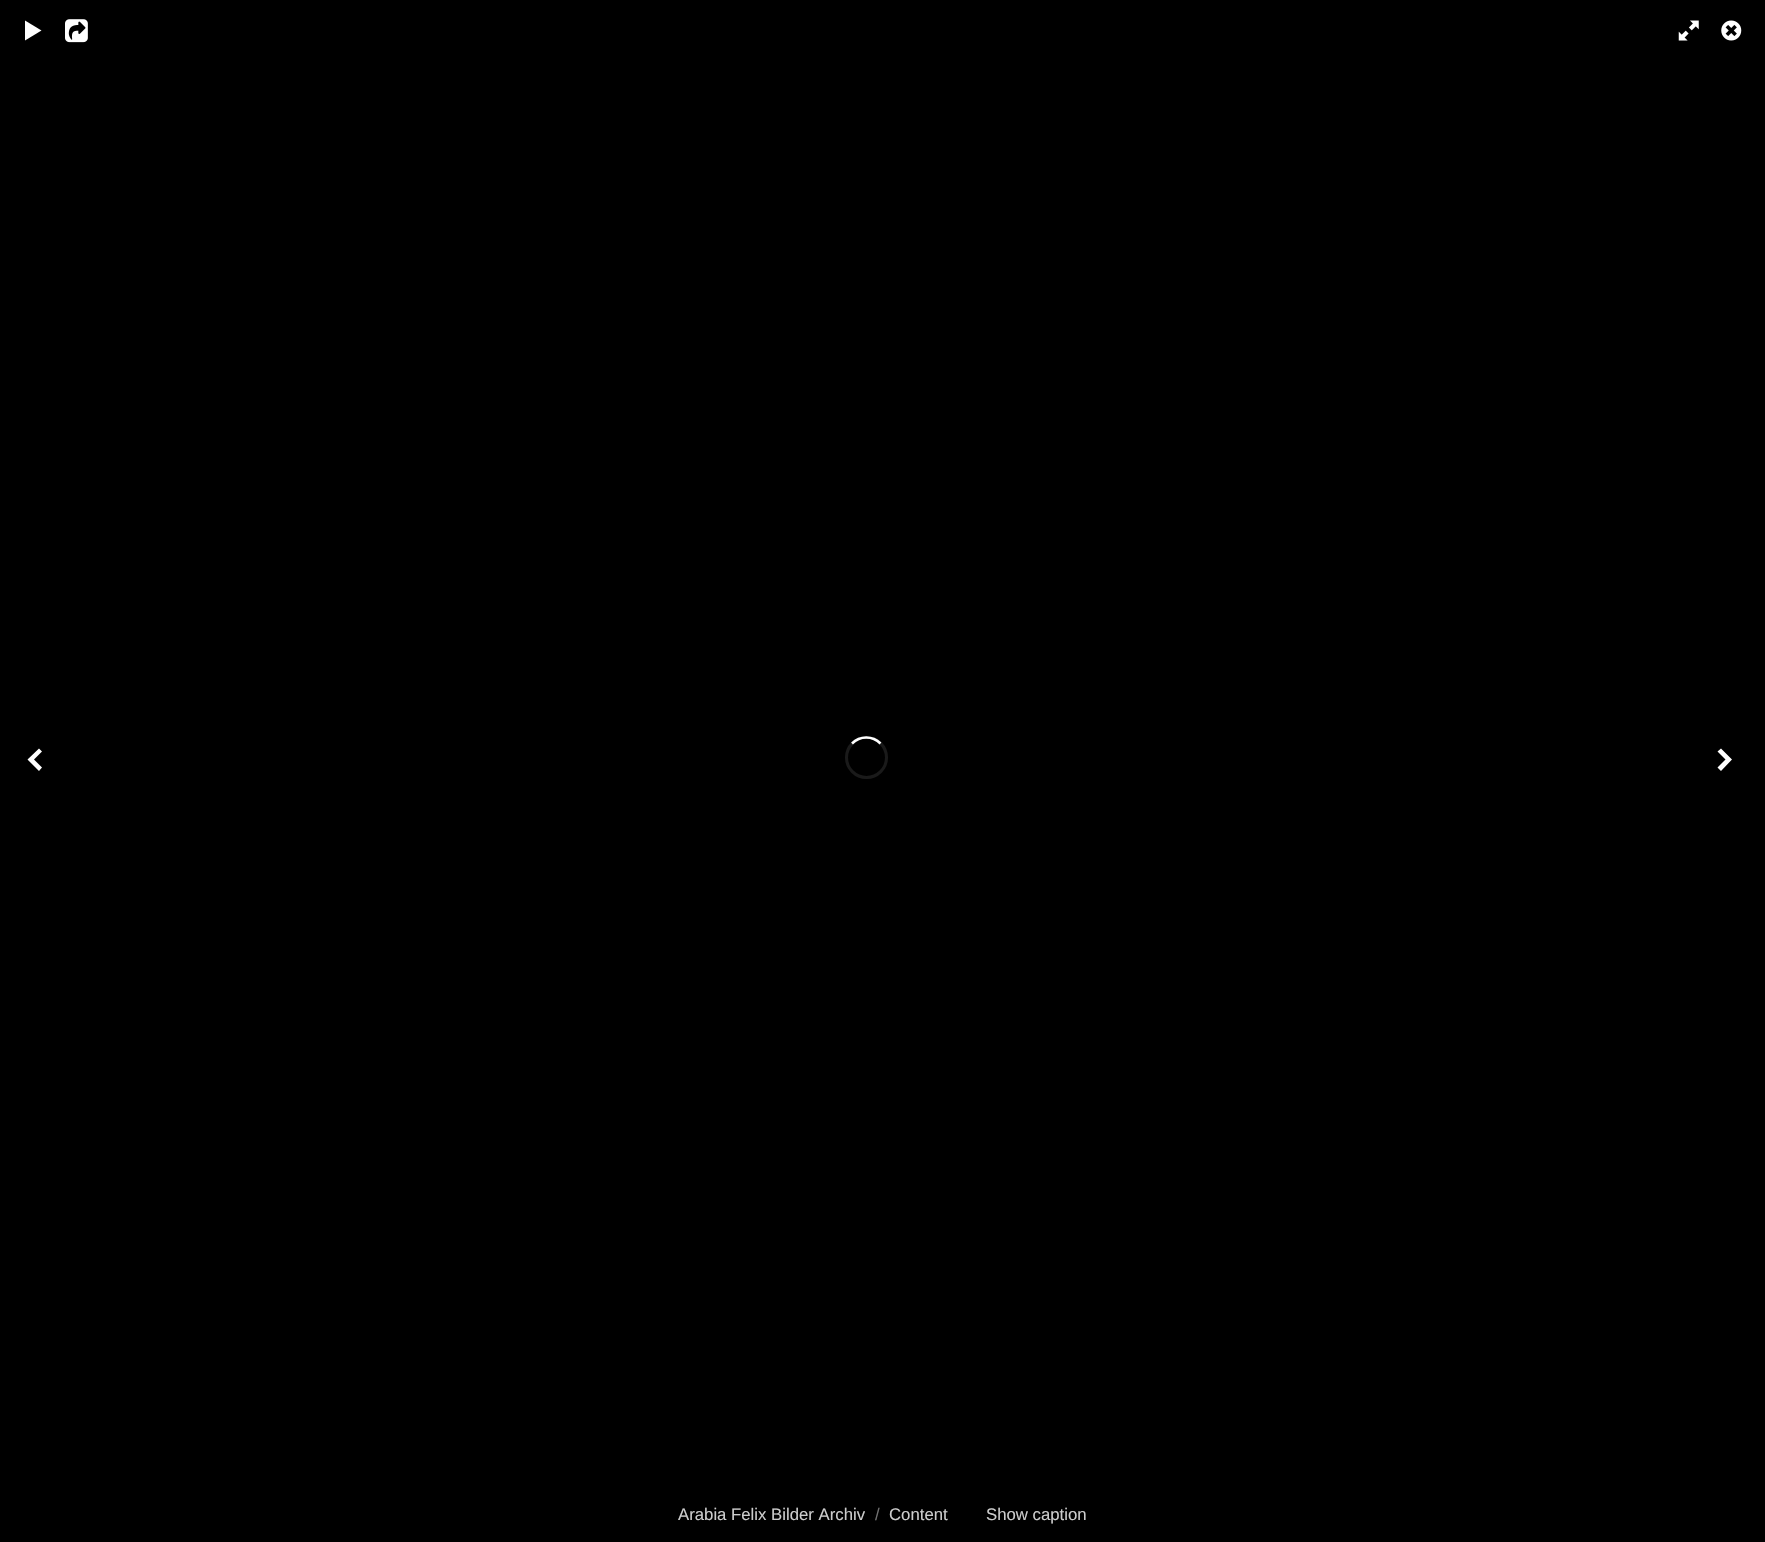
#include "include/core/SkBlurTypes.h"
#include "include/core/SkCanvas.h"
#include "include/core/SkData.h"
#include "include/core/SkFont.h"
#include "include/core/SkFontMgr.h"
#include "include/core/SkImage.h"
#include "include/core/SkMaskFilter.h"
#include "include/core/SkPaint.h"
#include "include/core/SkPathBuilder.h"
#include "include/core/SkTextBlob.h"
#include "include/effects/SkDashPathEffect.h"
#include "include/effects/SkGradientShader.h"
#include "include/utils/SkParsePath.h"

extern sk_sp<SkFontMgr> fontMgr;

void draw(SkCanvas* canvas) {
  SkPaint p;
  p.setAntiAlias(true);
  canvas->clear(SK_ColorBLACK);
  p.setColor(SK_ColorWHITE);
  canvas->drawPath(SkPathBuilder().moveTo(25, 40.5f).lineTo(25, 20.5f).lineTo(41.5f, 30.5f).close().detach(), p);
  canvas->drawImageRect(SkImages::DeferredFromEncodedData(SkData::MakeFromFileName("images/1.png")), SkRect::MakeLTRB(65, 19, 88, 43), SkSamplingOptions());
  canvas->drawImageRect(SkImages::DeferredFromEncodedData(SkData::MakeFromFileName("images/2.png")), SkRect::MakeLTRB(1678, 20, 1699, 41), SkSamplingOptions());
  canvas->drawImageRect(SkImages::DeferredFromEncodedData(SkData::MakeFromFileName("images/3.png")), SkRect::MakeLTRB(1721, 20, 1742, 41), SkSamplingOptions());
  canvas->drawPath(SkPathBuilder().moveTo(27.5f, 759.5f).lineTo(39, 748.5f).lineTo(42, 751.5f).lineTo(34, 759.5f).lineTo(42, 767.5f).lineTo(39, 771).close().detach(), p);
  p.setStyle(SkPaint::kStroke_Style);
  p.setStrokeWidth(3);
  p.setColor(SkColorSetRGB(26, 26, 26));
  canvas->drawCircle(866.5f, 757.5f, 20, p);
  p.setStrokeWidth(2.5f);
  p.setColor(SK_ColorWHITE);
  canvas->drawPath(SkPathBuilder().moveTo(852, 743.5f).cubicTo(860, 735.5f, 872.5f, 735.5f, 880.5f, 743.5f).detach(), p);
  p.setStyle(SkPaint::kFill_Style);
  canvas->drawPath(SkPathBuilder().moveTo(1717.5f, 767.5f).lineTo(1725.5f, 759.5f).lineTo(1717.5f, 751.5f).lineTo(1721, 748.5f).lineTo(1732, 759.5f).lineTo(1721, 771).close().detach(), p);
  SkFont font1(fontMgr->matchFamilyStyle("Liberation Sans", SkFontStyle::Normal()), 16.75f);
  font1.setSubpixel(true);
  p.setColor(SkColorSetRGB(204, 204, 204));
  canvas->drawString("Arabia Felix Bilder Archiv", 678, 1520, font1, p);
  p.setColor(SkColorSetRGB(112, 112, 112));
  canvas->drawString("/", 875, 1520, font1, p);
  p.setColor(SkColorSetRGB(204, 204, 204));
  canvas->drawString("Content", 889, 1520, font1, p);
  canvas->drawString("Show caption", 986, 1520, font1, p);
}
